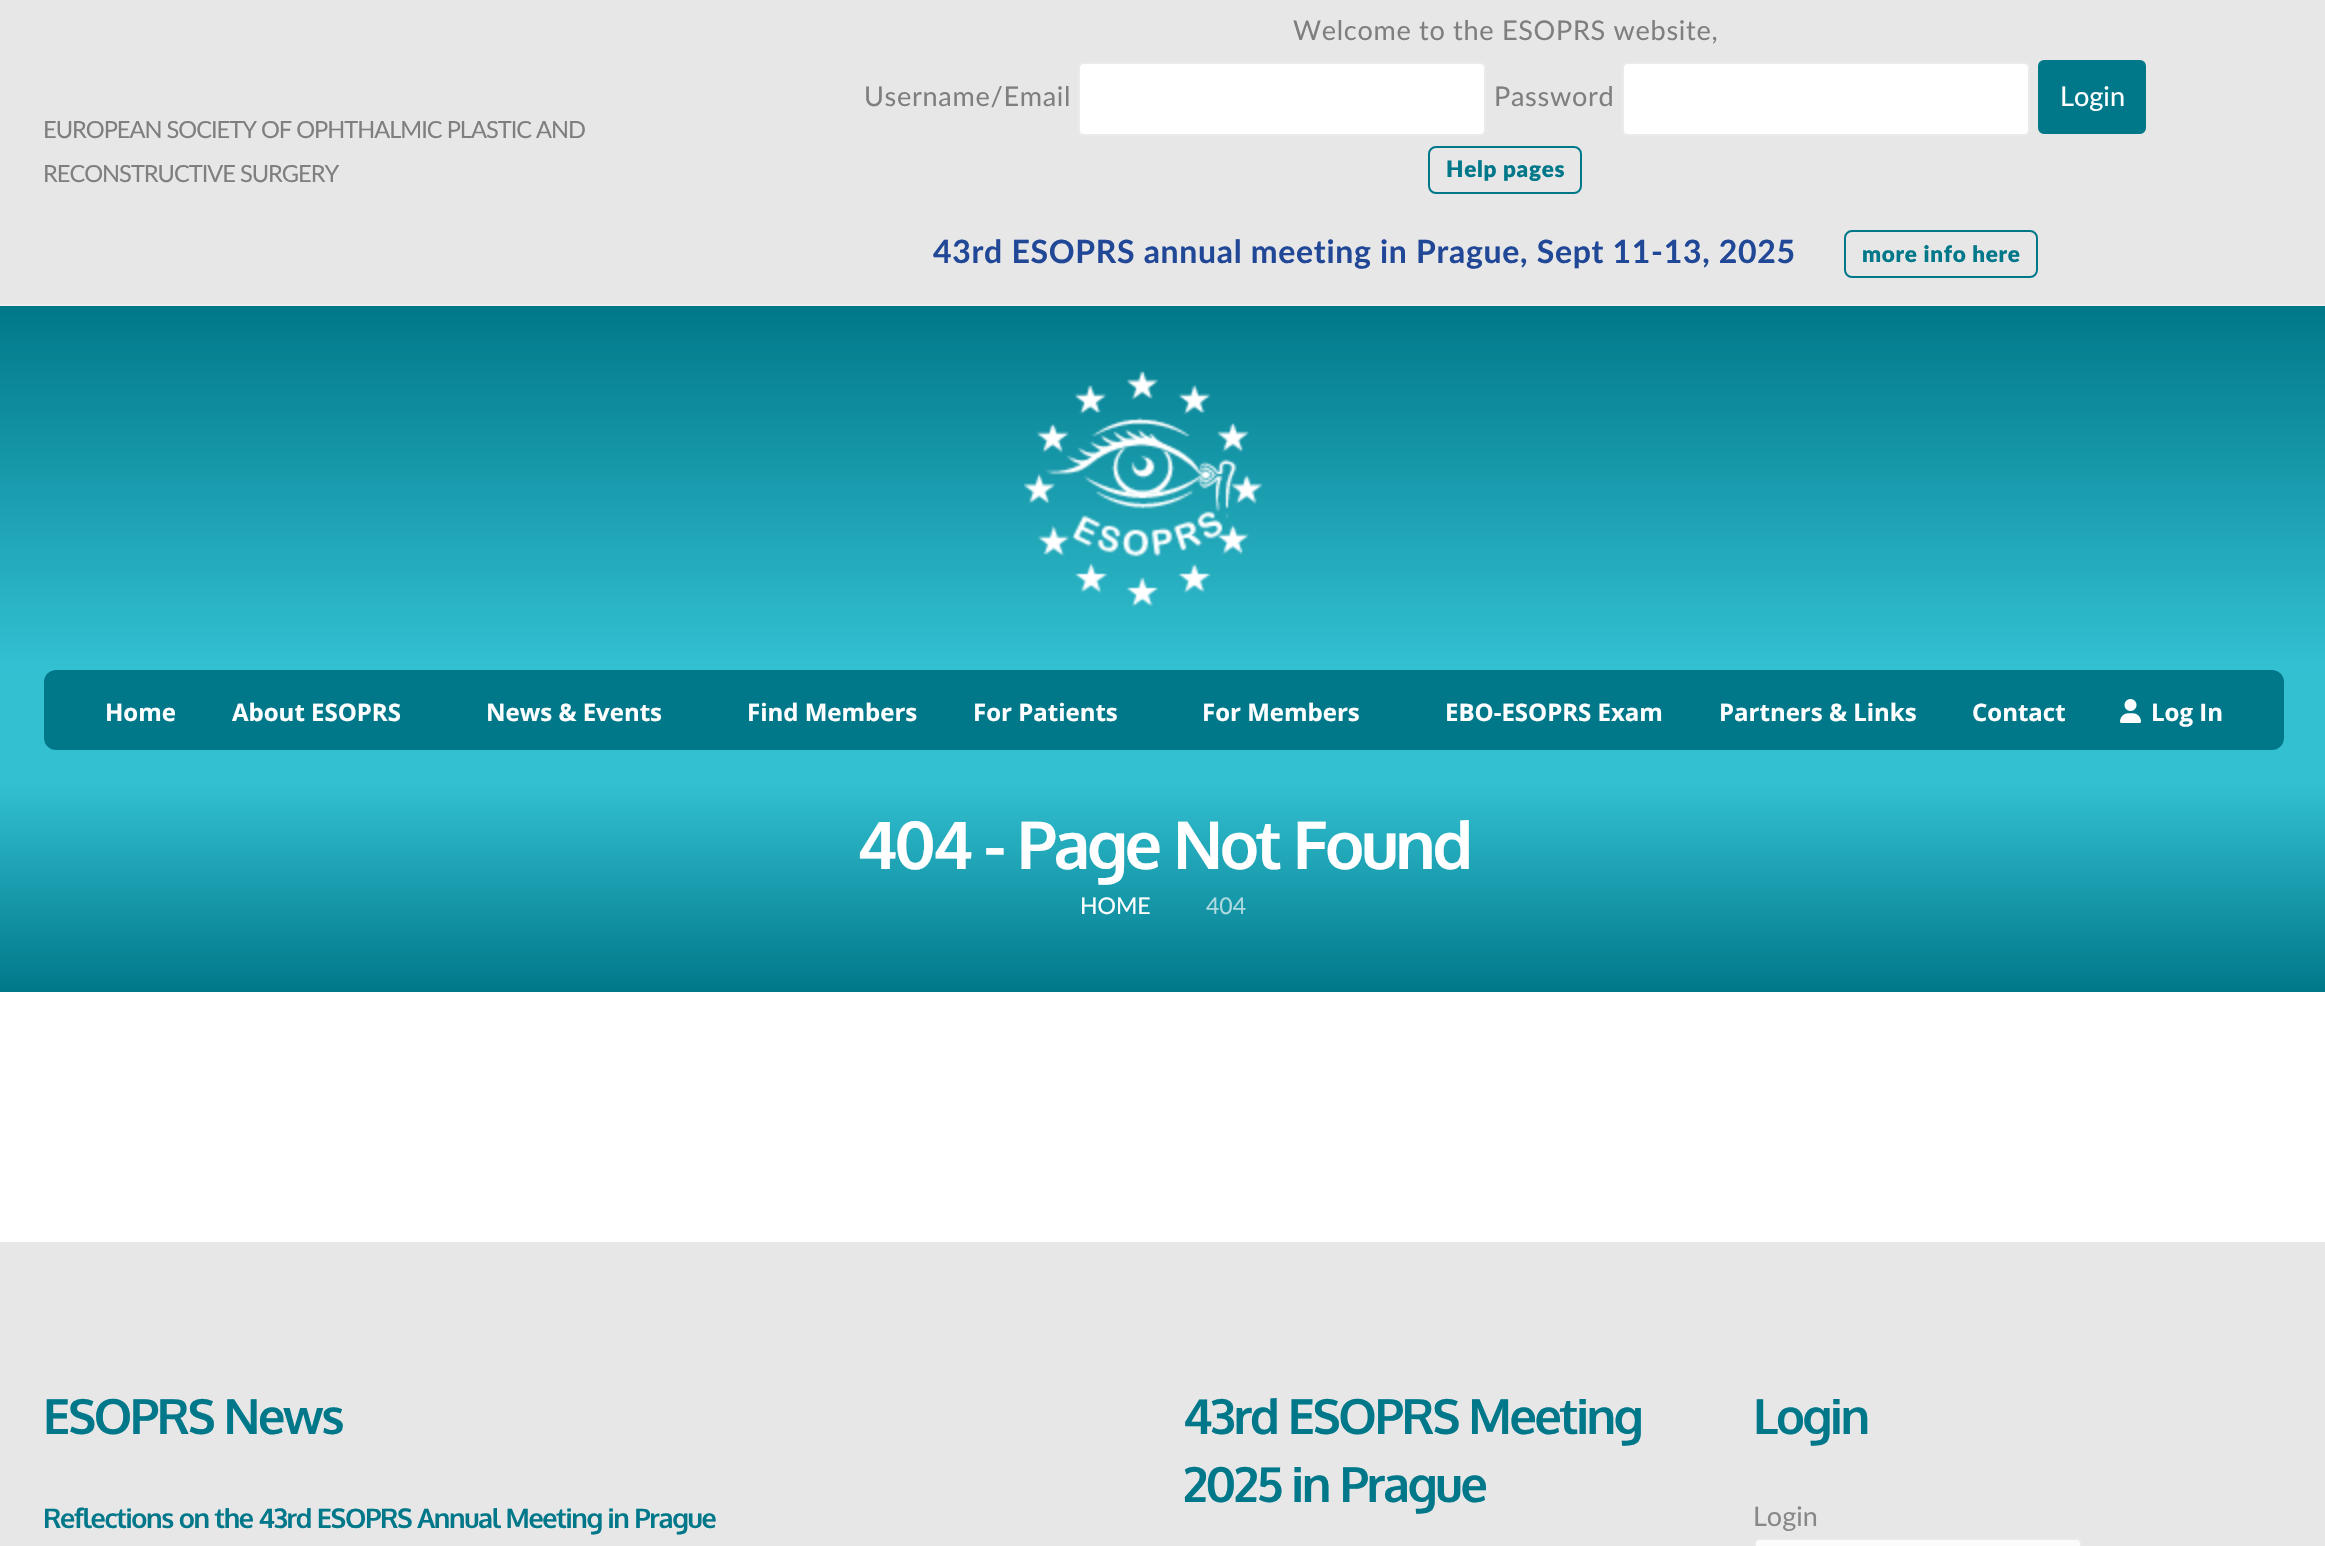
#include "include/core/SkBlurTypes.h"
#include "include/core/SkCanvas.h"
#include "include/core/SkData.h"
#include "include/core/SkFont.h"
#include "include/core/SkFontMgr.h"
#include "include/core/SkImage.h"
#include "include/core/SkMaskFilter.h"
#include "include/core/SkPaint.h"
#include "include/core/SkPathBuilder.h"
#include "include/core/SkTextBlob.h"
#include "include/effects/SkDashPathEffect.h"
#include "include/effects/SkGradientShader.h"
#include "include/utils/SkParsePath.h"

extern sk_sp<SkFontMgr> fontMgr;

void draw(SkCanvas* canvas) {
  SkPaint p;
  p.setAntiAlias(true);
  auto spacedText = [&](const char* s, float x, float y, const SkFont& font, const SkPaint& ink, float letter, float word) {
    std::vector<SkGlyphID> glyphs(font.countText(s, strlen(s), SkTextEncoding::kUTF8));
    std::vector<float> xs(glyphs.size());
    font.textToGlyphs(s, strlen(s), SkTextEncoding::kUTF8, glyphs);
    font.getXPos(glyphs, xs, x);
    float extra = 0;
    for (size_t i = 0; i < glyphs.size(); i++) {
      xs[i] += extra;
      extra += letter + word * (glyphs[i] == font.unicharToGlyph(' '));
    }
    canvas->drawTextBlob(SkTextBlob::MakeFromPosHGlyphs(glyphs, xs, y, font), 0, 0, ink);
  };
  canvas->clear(SK_ColorWHITE);
  p.setColor(SkColorSetRGB(231, 231, 231));
  canvas->drawRect(SkRect::MakeLTRB(0, 0, 2325, 304), p);
  p.setColor(SkColorSetRGB(237, 237, 237));
  canvas->drawRect(SkRect::MakeLTRB(0, 304, 2325, 306), p);
  p.setColor(SK_ColorWHITE);
  canvas->drawRoundRect(SkRect::MakeLTRB(1078, 62, 1486, 136), 6, 6, p);
  p.setStyle(SkPaint::kStroke_Style);
  p.setStrokeWidth(2);
  p.setColor(SkColorSetARGB(20, 0, 0, 0));
  canvas->drawRoundRect(SkRect::MakeLTRB(1079, 63, 1485, 135), 5, 5, p);
  p.setStyle(SkPaint::kFill_Style);
  p.setColor(SK_ColorWHITE);
  canvas->drawRoundRect(SkRect::MakeLTRB(1622, 62, 2030, 136), 6, 6, p);
  p.setStyle(SkPaint::kStroke_Style);
  p.setColor(SkColorSetARGB(20, 0, 0, 0));
  canvas->drawRoundRect(SkRect::MakeLTRB(1623, 63, 2029, 135), 5, 5, p);
  p.setStyle(SkPaint::kFill_Style);
  p.setColor(SkColorSetRGB(0, 120, 138));
  canvas->drawRoundRect(SkRect::MakeLTRB(2039, 61, 2145, 133), 5, 5, p);
  p.setStyle(SkPaint::kStroke_Style);
  canvas->drawRoundRect(SkRect::MakeLTRB(2039, 61, 2145, 133), 5, 5, p);
  canvas->drawRoundRect(SkRect::MakeLTRB(1429, 147, 1581, 193), 7, 7, p);
  canvas->drawRoundRect(SkRect::MakeLTRB(1845, 231, 2037, 277), 7, 7, p);
  p.setStyle(SkPaint::kFill_Style);
  {
    const SkColor colors[] = {SkColorSetRGB(0, 120, 138), SkColorSetRGB(51, 193, 210)};
    const float stops[] = {0, 1};
    const SkPoint ends[] = {{1163, 306}, {1163, 670}};
    p.setShader(SkGradientShader::MakeLinear(ends, colors, stops, 2, SkTileMode::kClamp));
    p.setAlpha(255);
  }
  canvas->drawRect(SkRect::MakeLTRB(0, 306, 2325, 670), p);
  canvas->drawImageRect(SkImages::DeferredFromEncodedData(SkData::MakeFromFileName("images/1.png")), SkRect::MakeLTRB(1024, 371, 1263, 607), SkSamplingOptions());
  p.setShader(nullptr);
  p.setColor(SkColorSetRGB(51, 193, 210));
  canvas->drawRect(SkRect::MakeLTRB(0, 670, 2325, 780), p);
  p.setColor(SkColorSetRGB(0, 120, 138));
  canvas->drawRoundRect(SkRect::MakeLTRB(44, 670, 2284, 750), 12, 12, p);
  canvas->drawImageRect(SkImages::DeferredFromEncodedData(SkData::MakeFromFileName("images/2.png")), SkRect::MakeLTRB(2120, 699, 2141, 723), SkSamplingOptions());
  {
    const SkColor colors[] = {SkColorSetRGB(51, 193, 210), SkColorSetRGB(0, 120, 138)};
    const float stops[] = {0, 1};
    const SkPoint ends[] = {{1163, 780}, {1163, 992}};
    p.setShader(SkGradientShader::MakeLinear(ends, colors, stops, 2, SkTileMode::kClamp));
    p.setAlpha(255);
  }
  canvas->drawRect(SkRect::MakeLTRB(0, 780, 2325, 992), p);
  p.setShader(nullptr);
  p.setColor(SkColorSetRGB(231, 231, 231));
  canvas->drawRect(SkRect::MakeLTRB(0, 1242, 2325, 1546), p);
  p.setColor(SkColorSetRGB(251, 251, 251));
  canvas->drawRoundRect(SkRect::MakeLTRB(1754, 1538, 2082, 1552), 6, 6, p);
  p.setStyle(SkPaint::kStroke_Style);
  p.setColor(SkColorSetARGB(20, 35, 35, 35));
  canvas->drawRoundRect(SkRect::MakeLTRB(1755, 1539, 2081, 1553), 5, 5, p);
  SkFont font1(fontMgr->matchFamilyStyle("Lato", SkFontStyle::Normal()), 23.6f);
  font1.setSubpixel(true);
  p.setStyle(SkPaint::kFill_Style);
  p.setColor(SkColorSetRGB(127, 127, 127));
  spacedText("EUROPEAN SOCIETY OF OPHTHALMIC PLASTIC AND", 43, 138, font1, p, -1, 0);
  spacedText("RECONSTRUCTIVE SURGERY", 43, 182, font1, p, -1, 0);
  SkFont font2(fontMgr->matchFamilyStyle("Lato", SkFontStyle::Normal()), 27.1f);
  font2.setSubpixel(true);
  spacedText("Welcome to the ESOPRS website,", 1293, 40, font2, p, 0.68f, 0);
  spacedText("Username/Email", 864, 106, font2, p, 0.68f, 0);
  spacedText("Password", 1494, 106, font2, p, 0.68f, 0);
  p.setColor(SK_ColorWHITE);
  canvas->drawString("Login", 2060, 106, font2, p);
  SkFont font3(fontMgr->matchFamilyStyle("Lato", SkFontStyle(800, SkFontStyle::kNormal_Width, SkFontStyle::kUpright_Slant)), 22.5f);
  font3.setSubpixel(true);
  p.setColor(SkColorSetRGB(0, 120, 138));
  spacedText("Help pages", 1446, 177, font3, p, 0.68f, 0);
  SkFont font4(fontMgr->matchFamilyStyle("Lato", SkFontStyle::Bold()), 32);
  font4.setSubpixel(true);
  p.setColor(SkColorSetRGB(33, 71, 151));
  spacedText("43rd ESOPRS annual meeting in Prague, Sept 11-13, 2025", 933, 263, font4, p, 0.68f, 0);
  p.setColor(SkColorSetRGB(0, 120, 138));
  spacedText("more info here", 1862, 262, font3, p, 0.68f, 0);
  SkFont font5(fontMgr->matchFamilyStyle("Open Sans", SkFontStyle::Bold()), 24);
  font5.setSubpixel(true);
  p.setColor(SK_ColorWHITE);
  canvas->drawString("Home", 105, 721, font5, p);
  canvas->drawString("About ESOPRS", 232, 721, font5, p);
  canvas->drawString("News & Events", 486, 721, font5, p);
  canvas->drawString("Find Members", 747, 721, font5, p);
  canvas->drawString("For Patients", 973, 721, font5, p);
  canvas->drawString("For Members", 1202, 721, font5, p);
  canvas->drawString("EBO-ESOPRS Exam", 1445, 721, font5, p);
  canvas->drawString("Partners & Links", 1719, 721, font5, p);
  canvas->drawString("Contact", 1972, 721, font5, p);
  canvas->drawString("Log In", 2151, 721, font5, p);
  SkFont font6(fontMgr->matchFamilyStyle("Oxygen", SkFontStyle::Bold()), 66);
  font6.setSubpixel(true);
  spacedText("404 - Page Not Found", 857, 869, font6, p, -3.25f, 0);
  SkFont font7(fontMgr->matchFamilyStyle("Lato", SkFontStyle::Normal()), 23);
  font7.setSubpixel(true);
  canvas->drawString("HOME", 1080, 914, font7, p);
  p.setColor(SkColorSetRGB(173, 218, 224));
  canvas->drawString("404", 1206, 914, font7, p);
  SkFont font8(fontMgr->matchFamilyStyle("Oxygen", SkFontStyle::Bold()), 48.5f);
  font8.setSubpixel(true);
  p.setColor(SkColorSetRGB(0, 120, 138));
  spacedText("ESOPRS News", 43, 1434, font8, p, -2.4f, 0);
  SkFont font9(fontMgr->matchFamilyStyle("Oxygen", SkFontStyle::Bold()), 27);
  font9.setSubpixel(true);
  spacedText("Reflections on the 43rd ESOPRS Annual Meeting in Prague", 43, 1528, font9, p, -1.35f, 0);
  spacedText("43rd ESOPRS Meeting", 1183, 1434, font8, p, -2.4f, 0);
  spacedText("2025 in Prague", 1183, 1502, font8, p, -2.4f, 0);
  spacedText("Login", 1753, 1434, font8, p, -2.4f, 0);
  SkFont font10(fontMgr->matchFamilyStyle("Lato", SkFontStyle::Normal()), 27);
  font10.setSubpixel(true);
  p.setColor(SkColorSetRGB(136, 136, 136));
  canvas->drawString("Login", 1753, 1526, font10, p);
}
